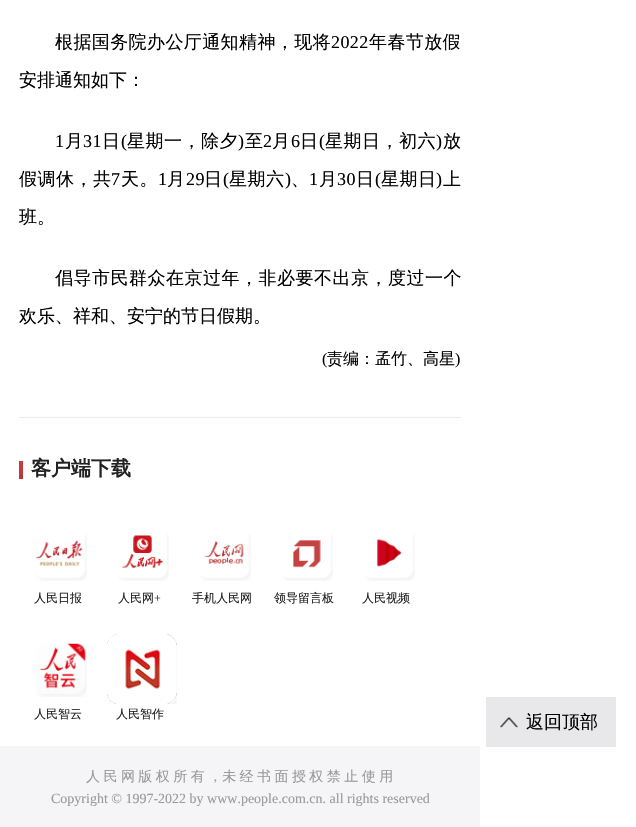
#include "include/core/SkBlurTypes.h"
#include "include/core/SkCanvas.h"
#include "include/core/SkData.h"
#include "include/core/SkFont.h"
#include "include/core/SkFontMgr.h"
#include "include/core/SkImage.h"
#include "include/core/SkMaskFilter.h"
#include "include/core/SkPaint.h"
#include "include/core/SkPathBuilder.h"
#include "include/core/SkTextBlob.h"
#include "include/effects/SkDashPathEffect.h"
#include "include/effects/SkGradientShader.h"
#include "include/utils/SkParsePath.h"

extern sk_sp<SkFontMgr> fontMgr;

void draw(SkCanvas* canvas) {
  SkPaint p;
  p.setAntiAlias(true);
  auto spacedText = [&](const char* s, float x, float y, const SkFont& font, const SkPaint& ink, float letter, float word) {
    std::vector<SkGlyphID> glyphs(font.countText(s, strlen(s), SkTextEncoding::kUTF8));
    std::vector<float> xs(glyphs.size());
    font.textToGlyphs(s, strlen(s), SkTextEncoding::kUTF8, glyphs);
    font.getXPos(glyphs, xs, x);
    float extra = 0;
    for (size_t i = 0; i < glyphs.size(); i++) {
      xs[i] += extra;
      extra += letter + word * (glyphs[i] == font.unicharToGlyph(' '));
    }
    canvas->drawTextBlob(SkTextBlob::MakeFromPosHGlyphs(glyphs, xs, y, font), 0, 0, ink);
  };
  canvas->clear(SK_ColorWHITE);
  p.setColor(SkColorSetRGB(236, 236, 236));
  canvas->drawRect(SkRect::MakeLTRB(19, 417, 461, 418), p);
  {
    const SkColor colors[] = {SkColorSetRGB(197, 61, 61), SkColorSetRGB(196, 58, 58), SkColorSetRGB(187, 45, 45)};
    const float stops[] = {0, 0.49f, 1};
    const SkPoint ends[] = {{16, 465}, {27, 476}};
    p.setShader(SkGradientShader::MakeLinear(ends, colors, stops, 3, SkTileMode::kClamp));
    p.setAlpha(255);
  }
  canvas->drawRect(SkRect::MakeLTRB(19, 461, 23, 479), p);
  canvas->drawImageRect(SkImages::DeferredFromEncodedData(SkData::MakeFromFileName("images/1.png")), SkRect::MakeLTRB(35, 534, 87, 581), SkSamplingOptions());
  canvas->drawImageRect(SkImages::DeferredFromEncodedData(SkData::MakeFromFileName("images/2.png")), SkRect::MakeLTRB(118, 534, 169, 581), SkSamplingOptions());
  canvas->drawImageRect(SkImages::DeferredFromEncodedData(SkData::MakeFromFileName("images/3.png")), SkRect::MakeLTRB(200, 534, 251, 581), SkSamplingOptions());
  canvas->drawImageRect(SkImages::DeferredFromEncodedData(SkData::MakeFromFileName("images/4.png")), SkRect::MakeLTRB(282, 534, 333, 581), SkSamplingOptions());
  canvas->drawImageRect(SkImages::DeferredFromEncodedData(SkData::MakeFromFileName("images/5.png")), SkRect::MakeLTRB(364, 534, 415, 581), SkSamplingOptions());
  canvas->drawImageRect(SkImages::DeferredFromEncodedData(SkData::MakeFromFileName("images/6.png")), SkRect::MakeLTRB(36, 643, 87, 697), SkSamplingOptions());
  canvas->drawImageRect(SkImages::DeferredFromEncodedData(SkData::MakeFromFileName("images/7.png")), SkRect::MakeLTRB(107, 634, 177, 704), SkSamplingOptions());
  p.setShader(nullptr);
  p.setColor(SkColorSetRGB(245, 245, 247));
  canvas->drawRect(SkRect::MakeLTRB(0, 746, 480, 827), p);
  canvas->drawImageRect(SkImages::DeferredFromEncodedData(SkData::MakeFromFileName("images/8.png")), SkRect::MakeLTRB(486, 697, 616, 747), SkSamplingOptions());
  SkFont font1(fontMgr->matchFamilyStyle("WenQuanYi Zen Hei", SkFontStyle(500, SkFontStyle::kNormal_Width, SkFontStyle::kUpright_Slant)), 18);
  font1.setSubpixel(true);
  p.setColor(SK_ColorBLACK);
  spacedText("根据国务院办公厅通知精神，现将", 55, 48, font1, p, 0.4f, 0);
  SkFont font2(fontMgr->matchFamilyStyle("Liberation Serif", SkFontStyle::Normal()), 18);
  font2.setSubpixel(true);
  spacedText("2022", 331, 48, font2, p, 0.4f, 0);
  spacedText("年春节放假", 369, 48, font1, p, 0.4f, 0);
  canvas->drawString("安排通知如下：", 19, 86, font1, p);
  spacedText("1", 55, 147, font2, p, 0.5f, 0);
  spacedText("月", 65, 147, font1, p, 0.5f, 0);
  spacedText("31", 83, 147, font2, p, 0.5f, 0);
  spacedText("日", 102, 147, font1, p, 0.5f, 0);
  spacedText("(", 121, 147, font2, p, 0.5f, 0);
  spacedText("星期一，除夕", 127, 147, font1, p, 0.5f, 0);
  spacedText(")", 238, 147, font2, p, 0.5f, 0);
  spacedText("至", 245, 147, font1, p, 0.5f, 0);
  spacedText("2", 263, 147, font2, p, 0.5f, 0);
  spacedText("月", 272, 147, font1, p, 0.5f, 0);
  spacedText("6", 291, 147, font2, p, 0.5f, 0);
  spacedText("日", 300, 147, font1, p, 0.5f, 0);
  spacedText("(", 319, 147, font2, p, 0.5f, 0);
  spacedText("星期日，初六", 325, 147, font1, p, 0.5f, 0);
  spacedText(")", 436, 147, font2, p, 0.5f, 0);
  spacedText("放", 443, 147, font1, p, 0.5f, 0);
  spacedText("假调休，共", 19, 185, font1, p, 0.5f, 0);
  spacedText("7", 111, 185, font2, p, 0.5f, 0);
  spacedText("天。", 121, 185, font1, p, 0.5f, 0);
  spacedText("1", 158, 185, font2, p, 0.5f, 0);
  spacedText("月", 167, 185, font1, p, 0.5f, 0);
  spacedText("29", 186, 185, font2, p, 0.5f, 0);
  spacedText("日", 204, 185, font1, p, 0.5f, 0);
  spacedText("(", 223, 185, font2, p, 0.5f, 0);
  spacedText("星期六", 229, 185, font1, p, 0.5f, 0);
  spacedText(")", 285, 185, font2, p, 0.5f, 0);
  spacedText("、", 291, 185, font1, p, 0.5f, 0);
  spacedText("1", 309, 185, font2, p, 0.5f, 0);
  spacedText("月", 319, 185, font1, p, 0.5f, 0);
  spacedText("30", 337, 185, font2, p, 0.5f, 0);
  spacedText("日", 356, 185, font1, p, 0.5f, 0);
  spacedText("(", 375, 185, font2, p, 0.5f, 0);
  spacedText("星期日", 381, 185, font1, p, 0.5f, 0);
  spacedText(")", 436, 185, font2, p, 0.5f, 0);
  spacedText("上", 443, 185, font1, p, 0.5f, 0);
  canvas->drawString("班。", 19, 223, font1, p);
  spacedText("倡导市民群众在京过年，非必要不出京，度过一个", 55, 284, font1, p, 0.5f, 0);
  canvas->drawString("欢乐、祥和、安宁的节日假期。", 19, 322, font1, p);
  SkFont font3(fontMgr->matchFamilyStyle("Liberation Serif", SkFontStyle::Normal()), 16);
  font3.setSubpixel(true);
  canvas->drawString("(", 322, 364, font3, p);
  SkFont font4(fontMgr->matchFamilyStyle("WenQuanYi Zen Hei", SkFontStyle(500, SkFontStyle::kNormal_Width, SkFontStyle::kUpright_Slant)), 16);
  font4.setSubpixel(true);
  canvas->drawString("责编：孟竹、高星", 327, 364, font4, p);
  canvas->drawString(")", 455, 364, font3, p);
  SkFont font5(fontMgr->matchFamilyStyle("WenQuanYi Zen Hei", SkFontStyle::Bold()), 20);
  font5.setSubpixel(true);
  p.setColor(SkColorSetRGB(33, 33, 33));
  canvas->drawString("客户端下载", 31, 475, font5, p);
  SkFont font6(fontMgr->matchFamilyStyle("WenQuanYi Zen Hei", SkFontStyle(500, SkFontStyle::kNormal_Width, SkFontStyle::kUpright_Slant)), 12);
  font6.setSubpixel(true);
  canvas->drawString("人民日报", 34, 602, font6, p);
  canvas->drawString("人民网", 118, 602, font6, p);
  SkFont font7(fontMgr->matchFamilyStyle("Liberation Serif", SkFontStyle::Normal()), 12);
  font7.setSubpixel(true);
  canvas->drawString("+", 154, 602, font7, p);
  canvas->drawString("手机人民网", 192, 602, font6, p);
  canvas->drawString("领导留言板", 274, 602, font6, p);
  canvas->drawString("人民视频", 362, 602, font6, p);
  canvas->drawString("人民智云", 34, 718, font6, p);
  canvas->drawString("人民智作", 116, 718, font6, p);
  SkFont font8(fontMgr->matchFamilyStyle("WenQuanYi Zen Hei", SkFontStyle(500, SkFontStyle::kNormal_Width, SkFontStyle::kUpright_Slant)), 14);
  font8.setSubpixel(true);
  p.setColor(SkColorSetRGB(153, 153, 153));
  spacedText("人 民 网 版 权 所 有 ，未 经 书 面 授 权 禁 止 使 用", 86, 781, font8, p, 0, -0.75f);
  SkFont font9(fontMgr->matchFamilyStyle("Liberation Serif", SkFontStyle::Normal()), 14);
  font9.setSubpixel(true);
  canvas->drawString("Copyright © 1997-2022 by www.people.com.cn. all rights reserved", 51, 803, font9, p);
  p.setColor(SK_ColorBLACK);
  canvas->drawString("返回顶部", 526, 728, font1, p);
}
